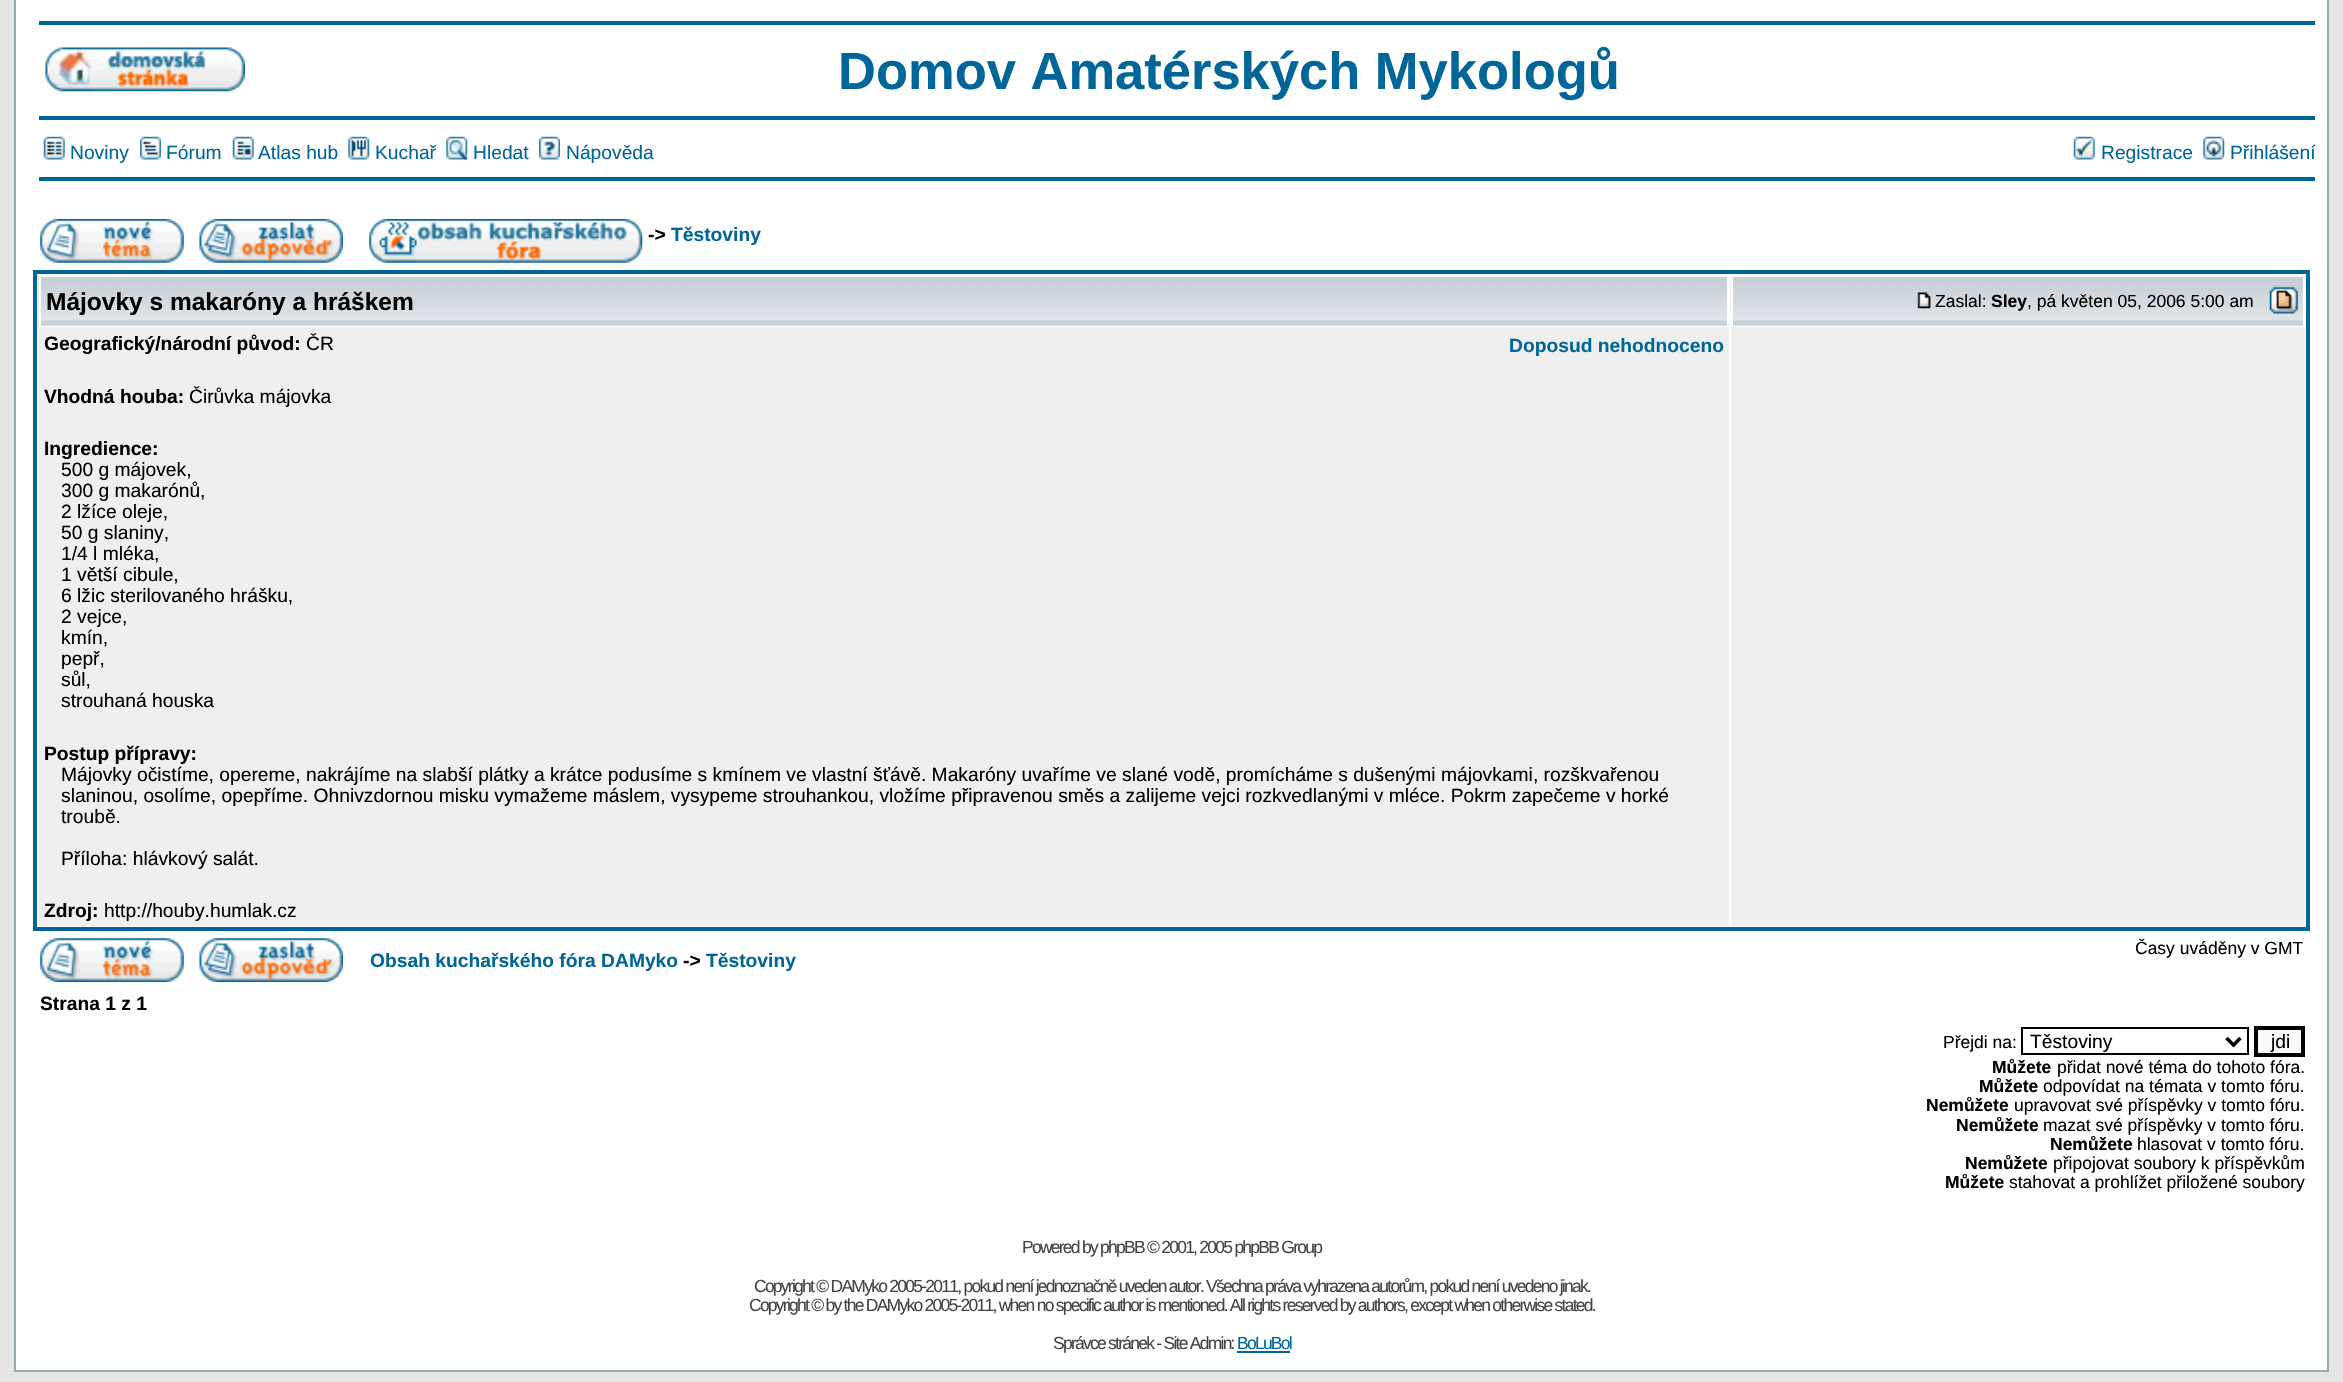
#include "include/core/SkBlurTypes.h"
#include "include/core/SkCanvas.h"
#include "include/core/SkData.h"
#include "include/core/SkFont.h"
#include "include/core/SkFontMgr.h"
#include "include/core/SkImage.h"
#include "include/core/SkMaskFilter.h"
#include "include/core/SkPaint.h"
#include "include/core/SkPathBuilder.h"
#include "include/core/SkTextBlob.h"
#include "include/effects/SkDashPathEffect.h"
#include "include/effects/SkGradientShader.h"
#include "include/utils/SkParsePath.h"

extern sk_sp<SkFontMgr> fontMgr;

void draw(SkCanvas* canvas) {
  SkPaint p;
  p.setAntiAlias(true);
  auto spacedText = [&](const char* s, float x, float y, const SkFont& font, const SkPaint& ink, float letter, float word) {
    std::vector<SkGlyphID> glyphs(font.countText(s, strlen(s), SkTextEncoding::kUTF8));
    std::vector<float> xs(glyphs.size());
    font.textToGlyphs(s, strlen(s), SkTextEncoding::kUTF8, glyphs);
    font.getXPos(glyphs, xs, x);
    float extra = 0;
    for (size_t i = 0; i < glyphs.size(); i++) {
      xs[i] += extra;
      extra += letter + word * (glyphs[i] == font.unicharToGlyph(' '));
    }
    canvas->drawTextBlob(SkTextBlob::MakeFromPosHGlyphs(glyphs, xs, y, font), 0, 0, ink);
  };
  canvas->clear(SkColorSetRGB(229, 229, 229));
  p.setColor(SK_ColorWHITE);
  canvas->drawRect(SkRect::MakeLTRB(15, -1, 2328, 1371), p);
  p.setStyle(SkPaint::kStroke_Style);
  p.setStrokeWidth(2);
  p.setColor(SkColorSetRGB(152, 170, 177));
  canvas->drawRect(SkRect::MakeLTRB(15, -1, 2328, 1371), p);
  p.setStyle(SkPaint::kFill_Style);
  p.setColor(SkColorSetRGB(0, 102, 153));
  canvas->drawRect(SkRect::MakeLTRB(39, 21, 2315, 25), p);
  canvas->drawImageRect(SkImages::DeferredFromEncodedData(SkData::MakeFromFileName("images/1.png")), SkRect::MakeLTRB(45, 47, 245, 92), SkSamplingOptions());
  canvas->drawRect(SkRect::MakeLTRB(39, 116, 2315, 120), p);
  canvas->drawImageRect(SkImages::DeferredFromEncodedData(SkData::MakeFromFileName("images/2.png")), SkRect::MakeLTRB(43, 136, 65, 160), SkSamplingOptions());
  canvas->drawImageRect(SkImages::DeferredFromEncodedData(SkData::MakeFromFileName("images/3.png")), SkRect::MakeLTRB(140, 136, 161, 160), SkSamplingOptions());
  canvas->drawImageRect(SkImages::DeferredFromEncodedData(SkData::MakeFromFileName("images/4.png")), SkRect::MakeLTRB(232, 136, 254, 160), SkSamplingOptions());
  canvas->drawImageRect(SkImages::DeferredFromEncodedData(SkData::MakeFromFileName("images/5.png")), SkRect::MakeLTRB(348, 136, 370, 160), SkSamplingOptions());
  canvas->drawImageRect(SkImages::DeferredFromEncodedData(SkData::MakeFromFileName("images/6.png")), SkRect::MakeLTRB(446, 136, 468, 160), SkSamplingOptions());
  canvas->drawImageRect(SkImages::DeferredFromEncodedData(SkData::MakeFromFileName("images/7.png")), SkRect::MakeLTRB(539, 136, 560, 160), SkSamplingOptions());
  canvas->drawImageRect(SkImages::DeferredFromEncodedData(SkData::MakeFromFileName("images/8.png")), SkRect::MakeLTRB(2073, 136, 2095, 160), SkSamplingOptions());
  canvas->drawImageRect(SkImages::DeferredFromEncodedData(SkData::MakeFromFileName("images/9.png")), SkRect::MakeLTRB(2203, 136, 2225, 160), SkSamplingOptions());
  canvas->drawRect(SkRect::MakeLTRB(39, 177, 2315, 181), p);
  canvas->drawImageRect(SkImages::DeferredFromEncodedData(SkData::MakeFromFileName("images/10.png")), SkRect::MakeLTRB(40, 219, 184, 263), SkSamplingOptions());
  canvas->drawImageRect(SkImages::DeferredFromEncodedData(SkData::MakeFromFileName("images/11.png")), SkRect::MakeLTRB(199, 219, 343, 263), SkSamplingOptions());
  canvas->drawImageRect(SkImages::DeferredFromEncodedData(SkData::MakeFromFileName("images/12.png")), SkRect::MakeLTRB(369, 219, 643, 263), SkSamplingOptions());
  p.setStyle(SkPaint::kStroke_Style);
  p.setStrokeWidth(4);
  canvas->drawRect(SkRect::MakeLTRB(35, 272, 2308, 929), p);
  canvas->drawImageRect(SkImages::DeferredFromEncodedData(SkData::MakeFromFileName("images/13.png")), SkRect::MakeLTRB(38, 275, 1727, 326), SkSamplingOptions());
  p.setStyle(SkPaint::kFill_Style);
  p.setColor(SK_ColorWHITE);
  canvas->drawRect(SkRect::MakeLTRB(39, 275, 1729, 277), p);
  canvas->drawRect(SkRect::MakeLTRB(39, 275, 41, 326), p);
  canvas->drawImageRect(SkImages::DeferredFromEncodedData(SkData::MakeFromFileName("images/14.png")), SkRect::MakeLTRB(1730, 275, 2303, 326), SkSamplingOptions());
  canvas->drawRect(SkRect::MakeLTRB(1731, 275, 2305, 277), p);
  canvas->drawRect(SkRect::MakeLTRB(1731, 275, 1733, 326), p);
  canvas->drawImageRect(SkImages::DeferredFromEncodedData(SkData::MakeFromFileName("images/15.png")), SkRect::MakeLTRB(1917, 292, 1931, 309), SkSamplingOptions());
  canvas->drawImageRect(SkImages::DeferredFromEncodedData(SkData::MakeFromFileName("images/16.png")), SkRect::MakeLTRB(2269, 286, 2298, 314), SkSamplingOptions());
  p.setColor(SkColorSetRGB(239, 239, 239));
  canvas->drawRect(SkRect::MakeLTRB(39, 327, 1729, 926), p);
  canvas->drawRect(SkRect::MakeLTRB(1731, 327, 2305, 926), p);
  canvas->drawImageRect(SkImages::DeferredFromEncodedData(SkData::MakeFromFileName("images/17.png")), SkRect::MakeLTRB(40, 938, 184, 982), SkSamplingOptions());
  canvas->drawImageRect(SkImages::DeferredFromEncodedData(SkData::MakeFromFileName("images/18.png")), SkRect::MakeLTRB(199, 938, 343, 982), SkSamplingOptions());
  p.setStyle(SkPaint::kStroke_Style);
  p.setStrokeWidth(2);
  p.setColor(SK_ColorBLACK);
  canvas->drawRect(SkRect::MakeLTRB(2022, 1028, 2248, 1054), p);
  p.setStrokeWidth(3.5f);
  canvas->drawPath(SkPathBuilder().moveTo(2226.5f, 1038).lineTo(2233.5f, 1045).lineTo(2240.5f, 1038).detach(), p);
  p.setStyle(SkPaint::kFill_Style);
  p.setColor(SkColorSetRGB(250, 250, 250));
  canvas->drawRect(SkRect::MakeLTRB(2256, 1028, 2303, 1055), p);
  p.setStyle(SkPaint::kStroke_Style);
  p.setStrokeWidth(4);
  p.setColor(SK_ColorBLACK);
  canvas->drawRect(SkRect::MakeLTRB(2256, 1028, 2303, 1055), p);
  p.setStyle(SkPaint::kFill_Style);
  p.setColor(SkColorSetRGB(0, 102, 153));
  canvas->drawRect(SkRect::MakeLTRB(1237, 1351, 1290, 1353), p);
  SkFont font1(fontMgr->matchFamilyStyle("Liberation Sans", SkFontStyle::Bold()), 52.5f);
  font1.setSubpixel(true);
  canvas->drawString("Domov Amatérských Mykologů", 838, 89, font1, p);
  SkFont font2(fontMgr->matchFamilyStyle("Liberation Sans", SkFontStyle::Normal()), 19.25f);
  font2.setSubpixel(true);
  canvas->drawString("Noviny", 70, 159, font2, p);
  canvas->drawString("Fórum", 166, 159, font2, p);
  canvas->drawString("Atlas hub", 258, 159, font2, p);
  canvas->drawString("Kuchař", 375, 159, font2, p);
  canvas->drawString("Hledat", 473, 159, font2, p);
  canvas->drawString("Nápověda", 566, 159, font2, p);
  canvas->drawString("Registrace", 2101, 159, font2, p);
  canvas->drawString("Přihlášení", 2230, 159, font2, p);
  SkFont font3(fontMgr->matchFamilyStyle("Liberation Sans", SkFontStyle::Bold()), 19.25f);
  font3.setSubpixel(true);
  p.setColor(SK_ColorBLACK);
  canvas->drawString("->", 648, 241, font3, p);
  p.setColor(SkColorSetRGB(0, 102, 153));
  canvas->drawString("Těstoviny", 671, 241, font3, p);
  SkFont font4(fontMgr->matchFamilyStyle("Liberation Sans", SkFontStyle::Bold()), 24.5f);
  font4.setSubpixel(true);
  p.setColor(SK_ColorBLACK);
  canvas->drawString("Májovky s makaróny a hráškem", 46, 310, font4, p);
  SkFont font5(fontMgr->matchFamilyStyle("Liberation Sans", SkFontStyle::Normal()), 17.5f);
  font5.setSubpixel(true);
  canvas->drawString("Zaslal:", 1935, 307, font5, p);
  SkFont font6(fontMgr->matchFamilyStyle("Liberation Sans", SkFontStyle::Bold()), 17.5f);
  font6.setSubpixel(true);
  canvas->drawString("Sley", 1991, 307, font6, p);
  canvas->drawString(", pá květen 05, 2006 5:00 am", 2027, 307, font5, p);
  canvas->drawString("Geografický/národní původ:", 44, 350, font3, p);
  canvas->drawString("ČR", 306, 350, font2, p);
  canvas->drawString("Vhodná houba:", 44, 403, font3, p);
  canvas->drawString("Čirůvka májovka", 189, 403, font2, p);
  p.setColor(SkColorSetRGB(0, 102, 153));
  canvas->drawString("Doposud nehodnoceno", 1509, 352, font3, p);
  p.setColor(SK_ColorBLACK);
  canvas->drawString("Ingredience:", 44, 455, font3, p);
  canvas->drawString("500 g májovek,", 61, 476, font2, p);
  canvas->drawString("300 g makarónů,", 61, 497, font2, p);
  canvas->drawString("2 lžíce oleje,", 61, 518, font2, p);
  canvas->drawString("50 g slaniny,", 61, 539, font2, p);
  canvas->drawString("1/4 l mléka,", 61, 560, font2, p);
  canvas->drawString("1 větší cibule,", 61, 581, font2, p);
  canvas->drawString("6 lžic sterilovaného hrášku,", 61, 602, font2, p);
  canvas->drawString("2 vejce,", 61, 623, font2, p);
  canvas->drawString("kmín,", 61, 644, font2, p);
  canvas->drawString("pepř,", 61, 665, font2, p);
  canvas->drawString("sůl,", 61, 686, font2, p);
  canvas->drawString("strouhaná houska", 61, 707, font2, p);
  canvas->drawString("Postup přípravy:", 44, 760, font3, p);
  canvas->drawString("Májovky očistíme, opereme, nakrájíme na slabší plátky a krátce podusíme s kmínem ve vlastní šťávě. Makaróny uvaříme ve slané vodě, promícháme s dušenými májovkami, rozškvařenou", 61, 781, font2, p);
  canvas->drawString("slaninou, osolíme, opepříme. Ohnivzdornou misku vymažeme máslem, vysypeme strouhankou, vložíme připravenou směs a zalijeme vejci rozkvedlanými v mléce. Pokrm zapečeme v horké", 61, 802, font2, p);
  canvas->drawString("troubě.", 61, 823, font2, p);
  canvas->drawString("Příloha: hlávkový salát.", 61, 865, font2, p);
  canvas->drawString("Zdroj:", 44, 917, font3, p);
  canvas->drawString("http://houby.humlak.cz", 104, 917, font2, p);
  canvas->drawString("Časy uváděny v GMT", 2135, 954, font5, p);
  p.setColor(SkColorSetRGB(0, 102, 153));
  canvas->drawString("Obsah kuchařského fóra DAMyko", 370, 967, font3, p);
  p.setColor(SK_ColorBLACK);
  canvas->drawString("->", 683, 967, font3, p);
  p.setColor(SkColorSetRGB(0, 102, 153));
  canvas->drawString("Těstoviny", 706, 967, font3, p);
  p.setColor(SK_ColorBLACK);
  canvas->drawString("Strana 1 z 1", 40, 1010, font3, p);
  canvas->drawString("Přejdi na:", 1943, 1048, font5, p);
  canvas->drawString("Těstoviny", 2030, 1048, font2, p);
  canvas->drawString("jdi", 2271, 1048, font2, p);
  canvas->drawString("Můžete", 1992, 1073, font6, p);
  canvas->drawString("přidat nové téma do tohoto fóra.", 2057, 1073, font5, p);
  canvas->drawString("Můžete", 1979, 1092, font6, p);
  canvas->drawString("odpovídat na témata v tomto fóru.", 2043, 1092, font5, p);
  canvas->drawString("Nemůžete", 1926, 1111, font6, p);
  canvas->drawString("upravovat své příspěvky v tomto fóru.", 2014, 1111, font5, p);
  canvas->drawString("Nemůžete", 1956, 1131, font6, p);
  canvas->drawString("mazat své příspěvky v tomto fóru.", 2043, 1131, font5, p);
  canvas->drawString("Nemůžete", 2050, 1150, font6, p);
  canvas->drawString("hlasovat v tomto fóru.", 2137, 1150, font5, p);
  canvas->drawString("Nemůžete", 1965, 1169, font6, p);
  canvas->drawString("připojovat soubory k příspěvkům", 2053, 1169, font5, p);
  canvas->drawString("Můžete", 1945, 1188, font6, p);
  canvas->drawString("stahovat a prohlížet přiložené soubory", 2009, 1188, font5, p);
  p.setColor(SkColorSetRGB(68, 68, 68));
  spacedText("Powered by phpBB © 2001, 2005 phpBB Group", 1022, 1253, font5, p, -1.75f, 0);
  spacedText("Copyright © DAMyko 2005-2011, pokud není jednoznačně uveden autor. Všechna práva vyhrazena autorům, pokud není uvedeno jinak.", 754, 1292, font5, p, -1.75f, 0);
  spacedText("Copyright © by the DAMyko 2005-2011, when no specific author is mentioned. All rights reserved by authors, except when otherwise stated.", 749, 1311, font5, p, -1.75f, 0);
  spacedText("Správce stránek - Site Admin:", 1053, 1349, font5, p, -1.75f, 0);
  p.setColor(SkColorSetRGB(0, 102, 153));
  spacedText("BoLuBol", 1237, 1349, font5, p, -1.75f, 0);
}
